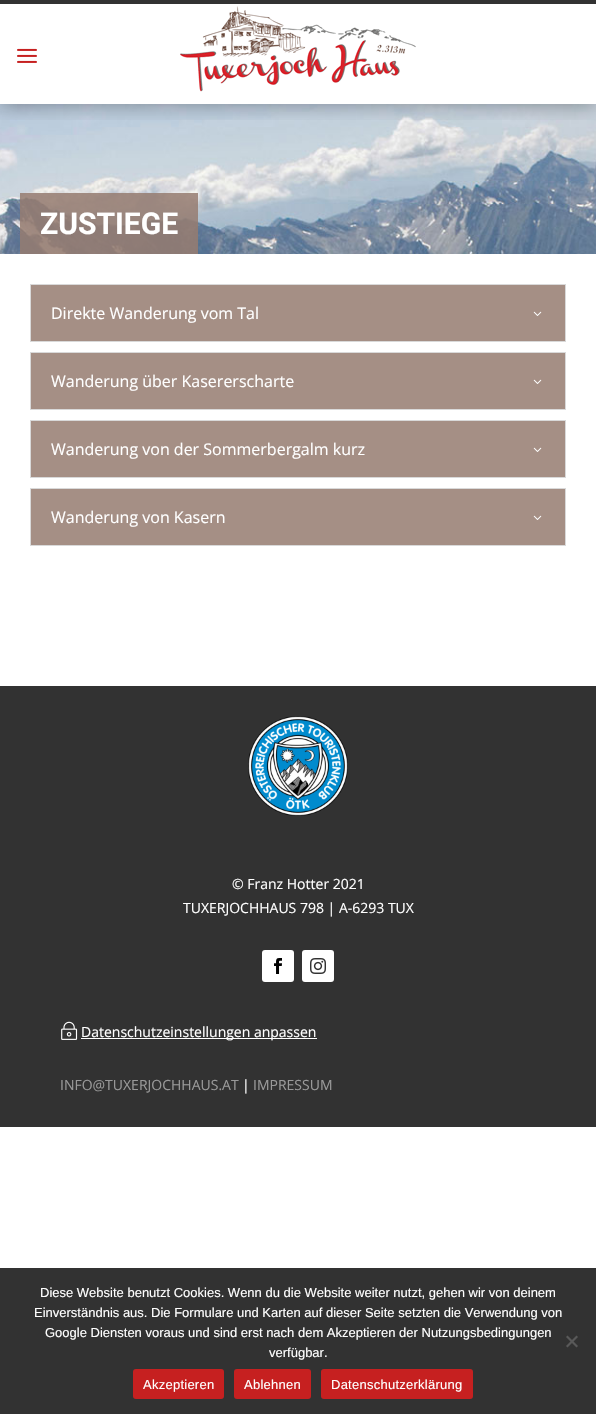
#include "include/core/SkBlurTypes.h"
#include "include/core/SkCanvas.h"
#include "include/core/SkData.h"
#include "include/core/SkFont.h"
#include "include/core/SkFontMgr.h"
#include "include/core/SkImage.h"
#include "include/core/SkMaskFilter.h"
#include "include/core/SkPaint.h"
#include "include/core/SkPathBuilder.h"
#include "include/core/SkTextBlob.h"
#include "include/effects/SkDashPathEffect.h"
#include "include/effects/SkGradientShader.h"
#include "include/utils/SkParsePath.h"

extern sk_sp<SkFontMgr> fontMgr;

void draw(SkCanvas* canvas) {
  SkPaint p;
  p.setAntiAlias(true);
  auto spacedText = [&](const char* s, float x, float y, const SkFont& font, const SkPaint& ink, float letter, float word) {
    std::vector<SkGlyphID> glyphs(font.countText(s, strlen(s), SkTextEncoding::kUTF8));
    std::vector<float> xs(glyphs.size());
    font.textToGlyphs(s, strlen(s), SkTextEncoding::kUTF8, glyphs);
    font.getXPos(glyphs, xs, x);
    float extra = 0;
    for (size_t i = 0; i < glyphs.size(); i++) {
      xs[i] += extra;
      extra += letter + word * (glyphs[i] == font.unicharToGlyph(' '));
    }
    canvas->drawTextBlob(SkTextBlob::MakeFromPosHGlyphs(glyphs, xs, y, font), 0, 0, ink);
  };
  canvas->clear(SK_ColorWHITE);
  canvas->drawImageRect(SkImages::DeferredFromEncodedData(SkData::MakeFromFileName("images/3.png")), SkRect::MakeLTRB(0, 104, 596, 254), SkSamplingOptions());
  canvas->save();
  canvas->clipRect(SkRect::MakeLTRB(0, 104, 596, 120));
  p.setColor(SkColorSetARGB(77, 0, 0, 0));
  p.setMaskFilter(SkMaskFilter::MakeBlur(kNormal_SkBlurStyle, 9));
  canvas->drawRect(SkRect::MakeLTRB(0, 2, 596, 106), p);
  p.setMaskFilter(nullptr);
  canvas->restore();
  p.setColor(SkColorSetRGB(50, 50, 50));
  canvas->drawRect(SkRect::MakeLTRB(0, 0, 596, 4), p);
  canvas->drawImageRect(SkImages::DeferredFromEncodedData(SkData::MakeFromFileName("images/1.png")), SkRect::MakeLTRB(17, 48, 37, 63), SkSamplingOptions());
  canvas->drawImageRect(SkImages::DeferredFromEncodedData(SkData::MakeFromFileName("images/2.png")), SkRect::MakeLTRB(180, 6, 416, 92), SkSamplingOptions());
  p.setColor(SkColorSetARGB(217, 149, 123, 112));
  canvas->drawRect(SkRect::MakeLTRB(20, 193, 198, 254), p);
  p.setColor(SkColorSetRGB(165, 143, 133));
  canvas->drawRect(SkRect::MakeLTRB(30.5f, 284.5f, 565.5f, 341.5f), p);
  p.setStyle(SkPaint::kStroke_Style);
  p.setStrokeWidth(1);
  p.setColor(SkColorSetRGB(217, 217, 217));
  canvas->drawRect(SkRect::MakeLTRB(30.5f, 284.5f, 565.5f, 341.5f), p);
  canvas->drawImageRect(SkImages::DeferredFromEncodedData(SkData::MakeFromFileName("images/4.png")), SkRect::MakeLTRB(533, 311, 542, 316), SkSamplingOptions());
  p.setStyle(SkPaint::kFill_Style);
  p.setColor(SkColorSetRGB(165, 143, 133));
  canvas->drawRect(SkRect::MakeLTRB(30.5f, 352.5f, 565.5f, 409.5f), p);
  p.setStyle(SkPaint::kStroke_Style);
  p.setColor(SkColorSetRGB(217, 217, 217));
  canvas->drawRect(SkRect::MakeLTRB(30.5f, 352.5f, 565.5f, 409.5f), p);
  canvas->drawImageRect(SkImages::DeferredFromEncodedData(SkData::MakeFromFileName("images/4.png")), SkRect::MakeLTRB(533, 379, 542, 384), SkSamplingOptions());
  p.setStyle(SkPaint::kFill_Style);
  p.setColor(SkColorSetRGB(165, 143, 133));
  canvas->drawRect(SkRect::MakeLTRB(30.5f, 420.5f, 565.5f, 477.5f), p);
  p.setStyle(SkPaint::kStroke_Style);
  p.setColor(SkColorSetRGB(217, 217, 217));
  canvas->drawRect(SkRect::MakeLTRB(30.5f, 420.5f, 565.5f, 477.5f), p);
  canvas->drawImageRect(SkImages::DeferredFromEncodedData(SkData::MakeFromFileName("images/4.png")), SkRect::MakeLTRB(533, 447, 542, 452), SkSamplingOptions());
  p.setStyle(SkPaint::kFill_Style);
  p.setColor(SkColorSetRGB(165, 143, 133));
  canvas->drawRect(SkRect::MakeLTRB(30.5f, 488.5f, 565.5f, 545.5f), p);
  p.setStyle(SkPaint::kStroke_Style);
  p.setColor(SkColorSetRGB(217, 217, 217));
  canvas->drawRect(SkRect::MakeLTRB(30.5f, 488.5f, 565.5f, 545.5f), p);
  canvas->drawImageRect(SkImages::DeferredFromEncodedData(SkData::MakeFromFileName("images/4.png")), SkRect::MakeLTRB(533, 515, 542, 520), SkSamplingOptions());
  p.setStyle(SkPaint::kFill_Style);
  p.setColor(SkColorSetRGB(50, 50, 50));
  canvas->drawRect(SkRect::MakeLTRB(0, 686, 596, 1127), p);
  canvas->drawImageRect(SkImages::DeferredFromEncodedData(SkData::MakeFromFileName("images/5.png")), SkRect::MakeLTRB(248, 716, 348, 816), SkSamplingOptions());
  p.setColor(SK_ColorWHITE);
  canvas->drawRoundRect(SkRect::MakeLTRB(262, 950, 294, 982), 3, 3, p);
  canvas->drawImageRect(SkImages::DeferredFromEncodedData(SkData::MakeFromFileName("images/6.png")), SkRect::MakeLTRB(274, 958, 282, 974), SkSamplingOptions());
  canvas->drawRoundRect(SkRect::MakeLTRB(302, 950, 334, 982), 3, 3, p);
  canvas->drawImageRect(SkImages::DeferredFromEncodedData(SkData::MakeFromFileName("images/7.png")), SkRect::MakeLTRB(310, 958, 326, 974), SkSamplingOptions());
  canvas->drawImageRect(SkImages::DeferredFromEncodedData(SkData::MakeFromFileName("images/8.png")), SkRect::MakeLTRB(61, 1021, 78, 1040), SkSamplingOptions());
  canvas->drawRect(SkRect::MakeLTRB(81, 1038, 317, 1039), p);
  p.setColor(SkColorSetRGB(50, 50, 50));
  canvas->drawRect(SkRect::MakeLTRB(0, 1268, 596, 1414), p);
  p.setColor(SkColorSetRGB(89, 89, 89));
  canvas->drawPath(SkPathBuilder().moveTo(576.5f, 1335.5f).lineTo(578, 1337).lineTo(567.5f, 1347.5f).lineTo(566, 1346).close().detach(), p);
  canvas->drawPath(SkPathBuilder().moveTo(566, 1337).lineTo(567.5f, 1335.5f).lineTo(578, 1346).lineTo(576.5f, 1347.5f).close().detach(), p);
  p.setColor(SkColorSetRGB(198, 32, 32));
  canvas->drawRoundRect(SkRect::MakeLTRB(133, 1369, 224, 1399), 3, 3, p);
  canvas->drawRoundRect(SkRect::MakeLTRB(234, 1369, 311, 1399), 3, 3, p);
  canvas->drawRoundRect(SkRect::MakeLTRB(321, 1369, 473, 1399), 3, 3, p);
  SkFont font1(fontMgr->matchFamilyStyle("Roboto", SkFontStyle::Bold()), 30);
  font1.setSubpixel(true);
  p.setColor(SK_ColorWHITE);
  canvas->drawString("ZUSTIEGE", 40, 234, font1, p);
  SkFont font2(fontMgr->matchFamilyStyle("Open Sans", SkFontStyle::Normal()), 16);
  font2.setSubpixel(true);
  canvas->drawString("Direkte Wanderung vom Tal", 51, 319, font2, p);
  canvas->drawString("Wanderung über Kasererscharte", 51, 387, font2, p);
  canvas->drawString("Wanderung von der Sommerbergalm kurz", 51, 455, font2, p);
  canvas->drawString("Wanderung von Kasern", 51, 523, font2, p);
  SkFont font3(fontMgr->matchFamilyStyle("Open Sans", SkFontStyle::Normal()), 14);
  font3.setSubpixel(true);
  canvas->drawString("© Franz Hotter 2021", 232, 889, font3, p);
  canvas->drawString("TUXERJOCHHAUS 798 | A-6293 TUX", 183, 913, font3, p);
  canvas->drawString("Datenschutzeinstellungen anpassen", 81, 1037, font3, p);
  p.setColor(SkColorSetRGB(153, 153, 153));
  canvas->drawString("INFO@TUXERJOCHHAUS.AT", 60, 1090, font3, p);
  p.setColor(SK_ColorWHITE);
  canvas->drawString("|", 242, 1090, font3, p);
  p.setColor(SkColorSetRGB(153, 153, 153));
  canvas->drawString("IMPRESSUM", 253, 1090, font3, p);
  SkFont font4(fontMgr->matchFamilyStyle("Liberation Sans", SkFontStyle::Normal()), 13);
  font4.setSubpixel(true);
  p.setColor(SK_ColorWHITE);
  canvas->drawString("Diese Website benutzt Cookies. Wenn du die Website weiter nutzt, gehen wir von deinem", 40, 1297, font4, p);
  canvas->drawString("Einverständnis aus. Die Formulare und Karten auf dieser Seite setzten die Verwendung von", 34, 1317, font4, p);
  canvas->drawString("Google Diensten voraus und sind erst nach dem Akzeptieren der Nutzungsbedingungen", 45, 1337, font4, p);
  canvas->drawString("verfügbar.", 269, 1357, font4, p);
  spacedText("Akzeptieren", 143, 1389, font4, p, 0.25f, 0);
  spacedText("Ablehnen", 244, 1389, font4, p, 0.25f, 0);
  spacedText("Datenschutzerklärung", 331, 1389, font4, p, 0.25f, 0);
}
